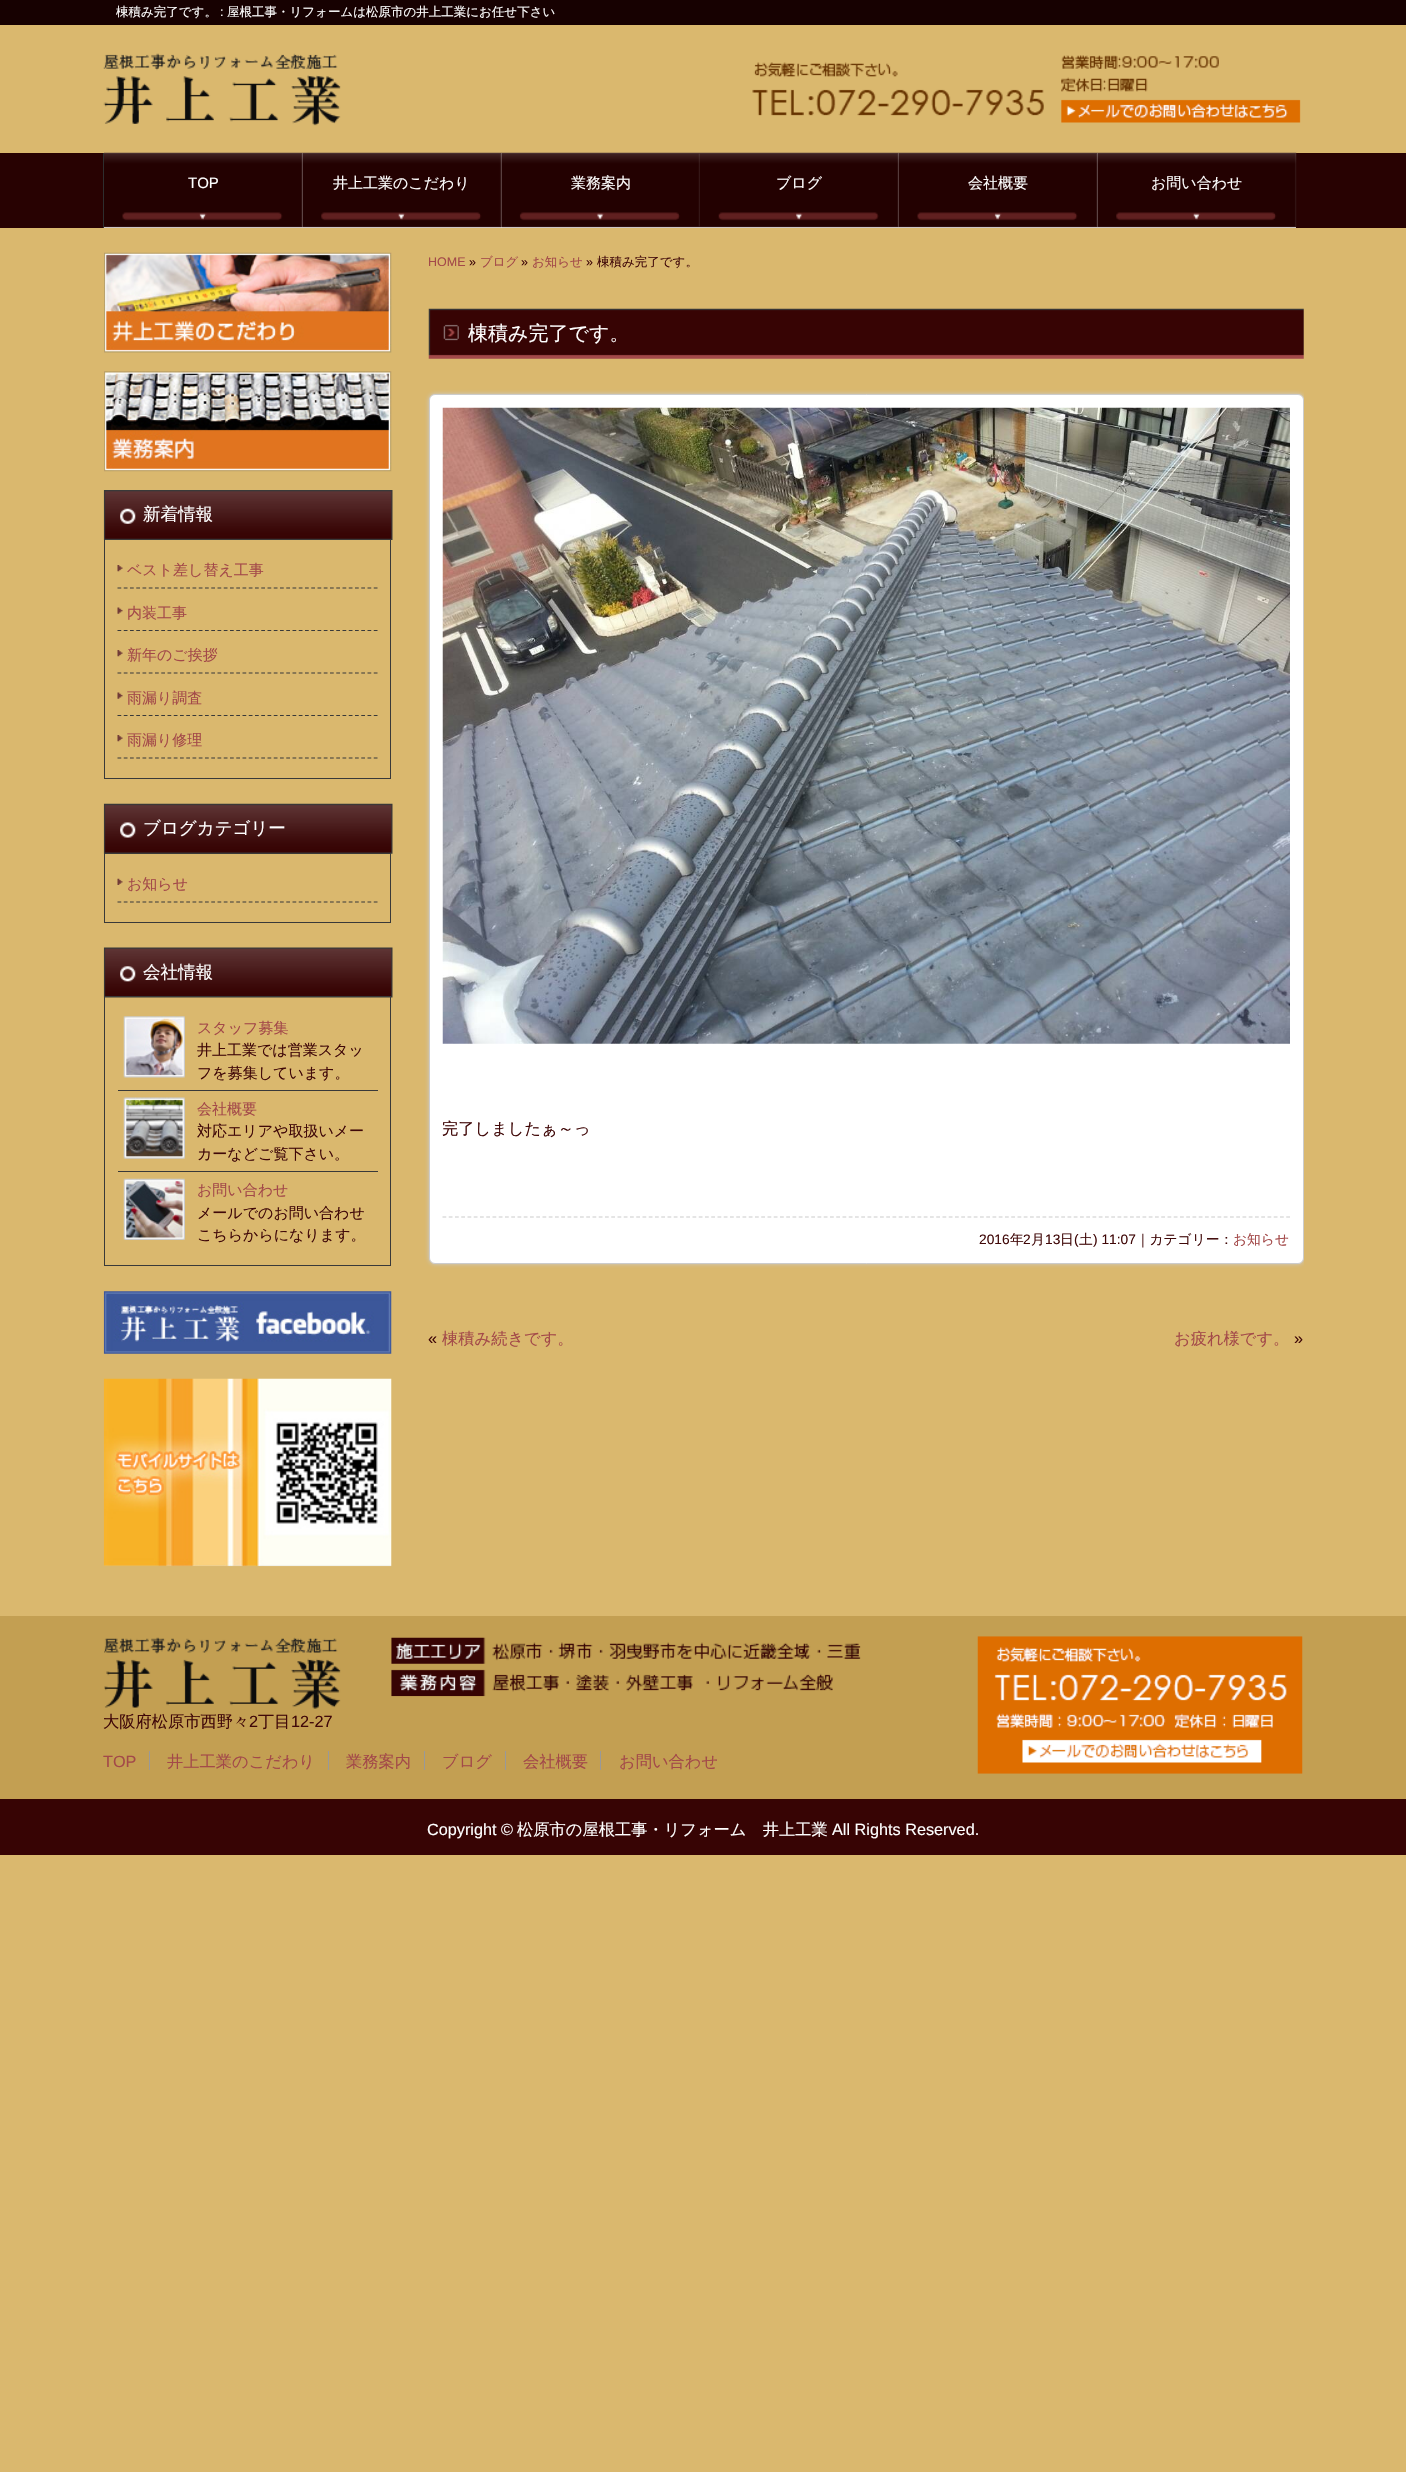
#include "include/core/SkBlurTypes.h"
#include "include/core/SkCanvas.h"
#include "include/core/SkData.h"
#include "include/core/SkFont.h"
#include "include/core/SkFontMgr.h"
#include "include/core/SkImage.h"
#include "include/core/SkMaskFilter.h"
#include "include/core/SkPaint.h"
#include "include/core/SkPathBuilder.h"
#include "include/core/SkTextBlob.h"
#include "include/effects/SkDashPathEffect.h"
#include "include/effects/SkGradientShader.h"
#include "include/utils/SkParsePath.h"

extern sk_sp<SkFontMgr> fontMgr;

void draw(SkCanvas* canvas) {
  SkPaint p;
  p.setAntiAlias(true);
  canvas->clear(SkColorSetRGB(218, 184, 110));
  p.setColor(SkColorSetRGB(23, 1, 1));
  canvas->drawRect(SkRect::MakeLTRB(0, 0, 1406, 25), p);
  canvas->drawImageRect(SkImages::DeferredFromEncodedData(SkData::MakeFromFileName("images/1.png")), SkRect::MakeLTRB(103, 53, 341, 126), SkSamplingOptions());
  canvas->drawImageRect(SkImages::DeferredFromEncodedData(SkData::MakeFromFileName("images/2.png")), SkRect::MakeLTRB(752, 55, 1301, 123), SkSamplingOptions());
  p.setColor(SkColorSetRGB(40, 2, 2));
  canvas->drawRect(SkRect::MakeLTRB(0, 153, 1406, 228), p);
  p.setColor(SkColorSetRGB(46, 46, 46));
  canvas->drawRect(SkRect::MakeLTRB(103, 153, 104, 228), p);
  p.setColor(SK_ColorWHITE);
  canvas->drawRect(SkRect::MakeLTRB(104, 153, 303, 228), p);
  canvas->drawImageRect(SkImages::DeferredFromEncodedData(SkData::MakeFromFileName("images/3.png")), SkRect::MakeLTRB(104, 152, 303, 228), SkSamplingOptions());
  canvas->drawRect(SkRect::MakeLTRB(303, 227, 501, 228), p);
  canvas->drawImageRect(SkImages::DeferredFromEncodedData(SkData::MakeFromFileName("images/4.png")), SkRect::MakeLTRB(302, 152, 502, 228), SkSamplingOptions());
  canvas->drawRect(SkRect::MakeLTRB(501, 153, 1098, 228), p);
  canvas->drawImageRect(SkImages::DeferredFromEncodedData(SkData::MakeFromFileName("images/5.png")), SkRect::MakeLTRB(501, 152, 700, 228), SkSamplingOptions());
  canvas->drawImageRect(SkImages::DeferredFromEncodedData(SkData::MakeFromFileName("images/6.png")), SkRect::MakeLTRB(700, 152, 899, 228), SkSamplingOptions());
  canvas->drawImageRect(SkImages::DeferredFromEncodedData(SkData::MakeFromFileName("images/7.png")), SkRect::MakeLTRB(898, 152, 1098, 228), SkSamplingOptions());
  canvas->drawRect(SkRect::MakeLTRB(1098, 227, 1296, 228), p);
  canvas->drawImageRect(SkImages::DeferredFromEncodedData(SkData::MakeFromFileName("images/8.png")), SkRect::MakeLTRB(1097, 152, 1297, 228), SkSamplingOptions());
  canvas->drawImageRect(SkImages::DeferredFromEncodedData(SkData::MakeFromFileName("images/9.png")), SkRect::MakeLTRB(104, 252, 392, 353), SkSamplingOptions());
  canvas->drawImageRect(SkImages::DeferredFromEncodedData(SkData::MakeFromFileName("images/10.png")), SkRect::MakeLTRB(104, 371, 392, 472), SkSamplingOptions());
  canvas->drawImageRect(SkImages::DeferredFromEncodedData(SkData::MakeFromFileName("images/11.png")), SkRect::MakeLTRB(103, 490, 393, 540), SkSamplingOptions());
  p.setStyle(SkPaint::kStroke_Style);
  p.setStrokeWidth(1);
  p.setColor(SkColorSetRGB(57, 57, 57));
  canvas->drawRect(SkRect::MakeLTRB(104.5f, 539.5f, 390.5f, 778.5f), p);
  canvas->drawImageRect(SkImages::DeferredFromEncodedData(SkData::MakeFromFileName("images/12.png")), SkRect::MakeLTRB(117, 565, 123, 572), SkSamplingOptions());
  p.setStrokeWidth(1.2f);
  p.setPathEffect(SkDashPathEffect::Make({{3.75f, 2.5f}}, 0));
  canvas->drawPath(SkPathBuilder().moveTo(117.5f, 588).lineTo(377.5f, 588).detach(), p);
  p.setPathEffect(nullptr);
  canvas->drawImageRect(SkImages::DeferredFromEncodedData(SkData::MakeFromFileName("images/13.png")), SkRect::MakeLTRB(117, 607, 123, 614), SkSamplingOptions());
  p.setPathEffect(SkDashPathEffect::Make({{3.75f, 2.5f}}, 0));
  canvas->drawPath(SkPathBuilder().moveTo(117.5f, 630.5f).lineTo(377.5f, 630.5f).detach(), p);
  p.setPathEffect(nullptr);
  canvas->drawImageRect(SkImages::DeferredFromEncodedData(SkData::MakeFromFileName("images/12.png")), SkRect::MakeLTRB(117, 650, 123, 657), SkSamplingOptions());
  p.setPathEffect(SkDashPathEffect::Make({{3.75f, 2.5f}}, 0));
  canvas->drawPath(SkPathBuilder().moveTo(117.5f, 673).lineTo(377.5f, 673).detach(), p);
  p.setPathEffect(nullptr);
  canvas->drawImageRect(SkImages::DeferredFromEncodedData(SkData::MakeFromFileName("images/13.png")), SkRect::MakeLTRB(117, 692, 123, 699), SkSamplingOptions());
  p.setPathEffect(SkDashPathEffect::Make({{3.75f, 2.5f}}, 0));
  canvas->drawPath(SkPathBuilder().moveTo(117.5f, 715.5f).lineTo(377.5f, 715.5f).detach(), p);
  p.setPathEffect(nullptr);
  canvas->drawImageRect(SkImages::DeferredFromEncodedData(SkData::MakeFromFileName("images/12.png")), SkRect::MakeLTRB(117, 735, 123, 742), SkSamplingOptions());
  p.setPathEffect(SkDashPathEffect::Make({{3.75f, 2.5f}}, 0));
  canvas->drawPath(SkPathBuilder().moveTo(117.5f, 758).lineTo(377.5f, 758).detach(), p);
  p.setPathEffect(nullptr);
  canvas->drawImageRect(SkImages::DeferredFromEncodedData(SkData::MakeFromFileName("images/14.png")), SkRect::MakeLTRB(103, 803, 393, 854), SkSamplingOptions());
  p.setStrokeWidth(1);
  canvas->drawRect(SkRect::MakeLTRB(104.5f, 853.5f, 390.5f, 922.5f), p);
  canvas->drawImageRect(SkImages::DeferredFromEncodedData(SkData::MakeFromFileName("images/15.png")), SkRect::MakeLTRB(117, 878, 123, 885), SkSamplingOptions());
  p.setStrokeWidth(1.2f);
  p.setPathEffect(SkDashPathEffect::Make({{3.75f, 2.5f}}, 0));
  canvas->drawPath(SkPathBuilder().moveTo(117.5f, 902).lineTo(377.5f, 902).detach(), p);
  p.setPathEffect(nullptr);
  canvas->drawImageRect(SkImages::DeferredFromEncodedData(SkData::MakeFromFileName("images/16.png")), SkRect::MakeLTRB(103, 947, 393, 998), SkSamplingOptions());
  p.setStrokeWidth(1);
  canvas->drawRect(SkRect::MakeLTRB(104.5f, 996.5f, 390.5f, 1265.5f), p);
  p.setStyle(SkPaint::kFill_Style);
  canvas->drawRect(SkRect::MakeLTRB(118, 1090, 378, 1091), p);
  canvas->drawImageRect(SkImages::DeferredFromEncodedData(SkData::MakeFromFileName("images/17.png")), SkRect::MakeLTRB(123, 1016, 185, 1078), SkSamplingOptions());
  canvas->drawRect(SkRect::MakeLTRB(118, 1171, 378, 1172), p);
  canvas->drawImageRect(SkImages::DeferredFromEncodedData(SkData::MakeFromFileName("images/18.png")), SkRect::MakeLTRB(123, 1097, 185, 1159), SkSamplingOptions());
  canvas->drawImageRect(SkImages::DeferredFromEncodedData(SkData::MakeFromFileName("images/19.png")), SkRect::MakeLTRB(123, 1178, 185, 1240), SkSamplingOptions());
  canvas->drawImageRect(SkImages::DeferredFromEncodedData(SkData::MakeFromFileName("images/20.png")), SkRect::MakeLTRB(103, 1291, 392, 1354), SkSamplingOptions());
  canvas->drawImageRect(SkImages::DeferredFromEncodedData(SkData::MakeFromFileName("images/21.png")), SkRect::MakeLTRB(103, 1378, 392, 1567), SkSamplingOptions());
  canvas->drawImageRect(SkImages::DeferredFromEncodedData(SkData::MakeFromFileName("images/22.png")), SkRect::MakeLTRB(428, 308, 1304, 359), SkSamplingOptions());
  canvas->save();
  canvas->clipRect(SkRect::MakeLTRB(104, 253, 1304, 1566));
  p.setColor(SkColorSetRGB(204, 204, 204));
  p.setMaskFilter(SkMaskFilter::MakeBlur(kNormal_SkBlurStyle, 2));
  canvas->drawRoundRect(SkRect::MakeLTRB(429, 394, 1304, 1264), 6, 6, p);
  p.setMaskFilter(nullptr);
  canvas->restore();
  p.setColor(SK_ColorWHITE);
  canvas->drawRoundRect(SkRect::MakeLTRB(429.5f, 394.5f, 1303.5f, 1263.5f), 5.5f, 5.5f, p);
  p.setStyle(SkPaint::kStroke_Style);
  p.setColor(SkColorSetRGB(204, 204, 204));
  canvas->drawRoundRect(SkRect::MakeLTRB(429.5f, 394.5f, 1303.5f, 1263.5f), 5.5f, 5.5f, p);
  p.setStrokeWidth(1.2f);
  p.setPathEffect(SkDashPathEffect::Make({{3.75f, 2.5f}}, 0));
  canvas->drawPath(SkPathBuilder().moveTo(442.5f, 1217).lineTo(1290, 1217).detach(), p);
  p.setPathEffect(nullptr);
  canvas->drawImageRect(SkImages::DeferredFromEncodedData(SkData::MakeFromFileName("images/23.png")), SkRect::MakeLTRB(442, 407, 1290, 1044), SkSamplingOptions());
  p.setStyle(SkPaint::kFill_Style);
  p.setColor(SkColorSetRGB(195, 159, 82));
  canvas->drawRect(SkRect::MakeLTRB(0, 1616, 1406, 1799), p);
  canvas->drawImageRect(SkImages::DeferredFromEncodedData(SkData::MakeFromFileName("images/24.png")), SkRect::MakeLTRB(391, 1637, 861, 1697), SkSamplingOptions());
  canvas->drawImageRect(SkImages::DeferredFromEncodedData(SkData::MakeFromFileName("images/25.png")), SkRect::MakeLTRB(104, 1637, 341, 1709), SkSamplingOptions());
  canvas->drawImageRect(SkImages::DeferredFromEncodedData(SkData::MakeFromFileName("images/26.png")), SkRect::MakeLTRB(977, 1636, 1303, 1774), SkSamplingOptions());
  p.setColor(SkColorSetRGB(153, 153, 153));
  canvas->drawRect(SkRect::MakeLTRB(149, 1751, 150, 1770), p);
  canvas->drawRect(SkRect::MakeLTRB(328, 1751, 329, 1770), p);
  canvas->drawRect(SkRect::MakeLTRB(424, 1751, 425, 1770), p);
  canvas->drawRect(SkRect::MakeLTRB(505, 1751, 506, 1770), p);
  canvas->drawRect(SkRect::MakeLTRB(600, 1751, 601, 1770), p);
  p.setColor(SkColorSetRGB(55, 4, 4));
  canvas->drawRect(SkRect::MakeLTRB(0, 1799, 1406, 1855), p);
  SkFont font1(fontMgr->matchFamilyStyle("WenQuanYi Zen Hei", SkFontStyle(500, SkFontStyle::kNormal_Width, SkFontStyle::kUpright_Slant)), 12.5f);
  font1.setSubpixel(true);
  p.setColor(SK_ColorWHITE);
  canvas->drawString("棟積み完了です。", 116, 16, font1, p);
  SkFont font2(fontMgr->matchFamilyStyle("Liberation Sans", SkFontStyle::Normal()), 12.5f);
  font2.setSubpixel(true);
  canvas->drawString(":", 220, 16, font2, p);
  canvas->drawString("屋根工事・リフォームは松原市の井上工業にお任せ下さい", 227, 16, font1, p);
  SkFont font3(fontMgr->matchFamilyStyle("Liberation Sans", SkFontStyle::Normal()), 15);
  font3.setSubpixel(true);
  canvas->drawString("TOP", 188, 188, font3, p);
  SkFont font4(fontMgr->matchFamilyStyle("WenQuanYi Zen Hei", SkFontStyle(500, SkFontStyle::kNormal_Width, SkFontStyle::kUpright_Slant)), 15);
  font4.setSubpixel(true);
  canvas->drawString("井上工業のこだわり", 333, 188, font4, p);
  canvas->drawString("業務案内", 571, 188, font4, p);
  canvas->drawString("ブログ", 776, 188, font4, p);
  canvas->drawString("会社概要", 968, 188, font4, p);
  canvas->drawString("お問い合わせ", 1151, 188, font4, p);
  SkFont font5(fontMgr->matchFamilyStyle("WenQuanYi Zen Hei", SkFontStyle(500, SkFontStyle::kNormal_Width, SkFontStyle::kUpright_Slant)), 17.5f);
  font5.setSubpixel(true);
  canvas->drawString("新着情報", 143, 520, font5, p);
  p.setColor(SkColorSetRGB(163, 73, 73));
  canvas->drawString("ベスト差し替え工事", 127, 575, font4, p);
  canvas->drawString("内装工事", 127, 618, font4, p);
  canvas->drawString("新年のご挨拶", 127, 660, font4, p);
  canvas->drawString("雨漏り調査", 127, 703, font4, p);
  canvas->drawString("雨漏り修理", 127, 745, font4, p);
  p.setColor(SK_ColorWHITE);
  canvas->drawString("ブログカテゴリー", 143, 834, font5, p);
  p.setColor(SkColorSetRGB(163, 73, 73));
  canvas->drawString("お知らせ", 127, 889, font4, p);
  p.setColor(SK_ColorWHITE);
  canvas->drawString("会社情報", 143, 978, font5, p);
  p.setColor(SkColorSetRGB(163, 73, 73));
  canvas->drawString("スタッフ募集", 197, 1033, font4, p);
  p.setColor(SkColorSetRGB(64, 8, 8));
  canvas->drawString("井上工業では営業スタッ", 197, 1055, font4, p);
  canvas->drawString("フを募集しています。", 197, 1078, font4, p);
  p.setColor(SkColorSetRGB(163, 73, 73));
  canvas->drawString("会社概要", 197, 1114, font4, p);
  p.setColor(SkColorSetRGB(64, 8, 8));
  canvas->drawString("対応エリアや取扱いメー", 197, 1136, font4, p);
  canvas->drawString("カーなどご覧下さい。", 197, 1159, font4, p);
  p.setColor(SkColorSetRGB(163, 73, 73));
  canvas->drawString("お問い合わせ", 197, 1195, font4, p);
  p.setColor(SkColorSetRGB(64, 8, 8));
  canvas->drawString("メールでのお問い合わせ", 197, 1218, font4, p);
  canvas->drawString("こちらからになります。", 197, 1240, font4, p);
  p.setColor(SkColorSetRGB(163, 73, 73));
  canvas->drawString("HOME", 428, 266, font2, p);
  p.setColor(SkColorSetRGB(64, 8, 8));
  canvas->drawString("»", 469, 266, font2, p);
  p.setColor(SkColorSetRGB(163, 73, 73));
  canvas->drawString("ブログ", 480, 266, font1, p);
  p.setColor(SkColorSetRGB(64, 8, 8));
  canvas->drawString("»", 521, 266, font2, p);
  p.setColor(SkColorSetRGB(163, 73, 73));
  canvas->drawString("お知らせ", 532, 266, font1, p);
  p.setColor(SkColorSetRGB(64, 8, 8));
  canvas->drawString("»", 586, 266, font2, p);
  canvas->drawString("棟積み完了です。", 597, 266, font1, p);
  SkFont font6(fontMgr->matchFamilyStyle("WenQuanYi Zen Hei", SkFontStyle(500, SkFontStyle::kNormal_Width, SkFontStyle::kUpright_Slant)), 20);
  font6.setSubpixel(true);
  p.setColor(SK_ColorWHITE);
  canvas->drawString("棟積み完了です。", 468, 340, font6, p);
  SkFont font7(fontMgr->matchFamilyStyle("WenQuanYi Zen Hei", SkFontStyle(500, SkFontStyle::kNormal_Width, SkFontStyle::kUpright_Slant)), 16.25f);
  font7.setSubpixel(true);
  p.setColor(SkColorSetRGB(64, 8, 8));
  canvas->drawString("完了しましたぁ～っ", 442, 1134, font7, p);
  SkFont font8(fontMgr->matchFamilyStyle("Liberation Sans", SkFontStyle::Normal()), 13.75f);
  font8.setSubpixel(true);
  canvas->drawString("2016", 979, 1244, font8, p);
  SkFont font9(fontMgr->matchFamilyStyle("WenQuanYi Zen Hei", SkFontStyle(500, SkFontStyle::kNormal_Width, SkFontStyle::kUpright_Slant)), 13.75f);
  font9.setSubpixel(true);
  canvas->drawString("年", 1010, 1244, font9, p);
  canvas->drawString("2", 1023, 1244, font8, p);
  canvas->drawString("月", 1031, 1244, font9, p);
  canvas->drawString("13", 1045, 1244, font8, p);
  canvas->drawString("日", 1060, 1244, font9, p);
  canvas->drawString("(", 1074, 1244, font8, p);
  canvas->drawString("土", 1079, 1244, font9, p);
  canvas->drawString(") 11:07", 1093, 1244, font8, p);
  canvas->drawString("｜カテゴリー：", 1136, 1244, font9, p);
  p.setColor(SkColorSetRGB(163, 73, 73));
  canvas->drawString("お知らせ", 1233, 1244, font9, p);
  SkFont font10(fontMgr->matchFamilyStyle("Liberation Sans", SkFontStyle::Normal()), 16.25f);
  font10.setSubpixel(true);
  p.setColor(SkColorSetRGB(64, 8, 8));
  canvas->drawString("«", 428, 1344, font10, p);
  p.setColor(SkColorSetRGB(163, 73, 73));
  canvas->drawString("棟積み続きです。", 442, 1344, font7, p);
  canvas->drawString("お疲れ様です。", 1174, 1344, font7, p);
  p.setColor(SkColorSetRGB(64, 8, 8));
  canvas->drawString("»", 1294, 1344, font10, p);
  canvas->drawString("大阪府松原市西野々", 103, 1727, font7, p);
  canvas->drawString("2", 249, 1727, font10, p);
  canvas->drawString("丁目", 258, 1727, font7, p);
  canvas->drawString("12-27", 291, 1727, font10, p);
  p.setColor(SkColorSetRGB(163, 73, 73));
  canvas->drawString("TOP", 103, 1767, font10, p);
  canvas->drawString("井上工業のこだわり", 167, 1767, font7, p);
  canvas->drawString("業務案内", 346, 1767, font7, p);
  canvas->drawString("ブログ", 442, 1767, font7, p);
  canvas->drawString("会社概要", 523, 1767, font7, p);
  canvas->drawString("お問い合わせ", 619, 1767, font7, p);
  p.setColor(SK_ColorWHITE);
  canvas->drawString("Copyright ©", 427, 1835, font10, p);
  canvas->drawString("松原市の屋根工事・リフォーム　井上工業", 517, 1835, font7, p);
  canvas->drawString("All Rights Reserved.", 832, 1835, font10, p);
}
